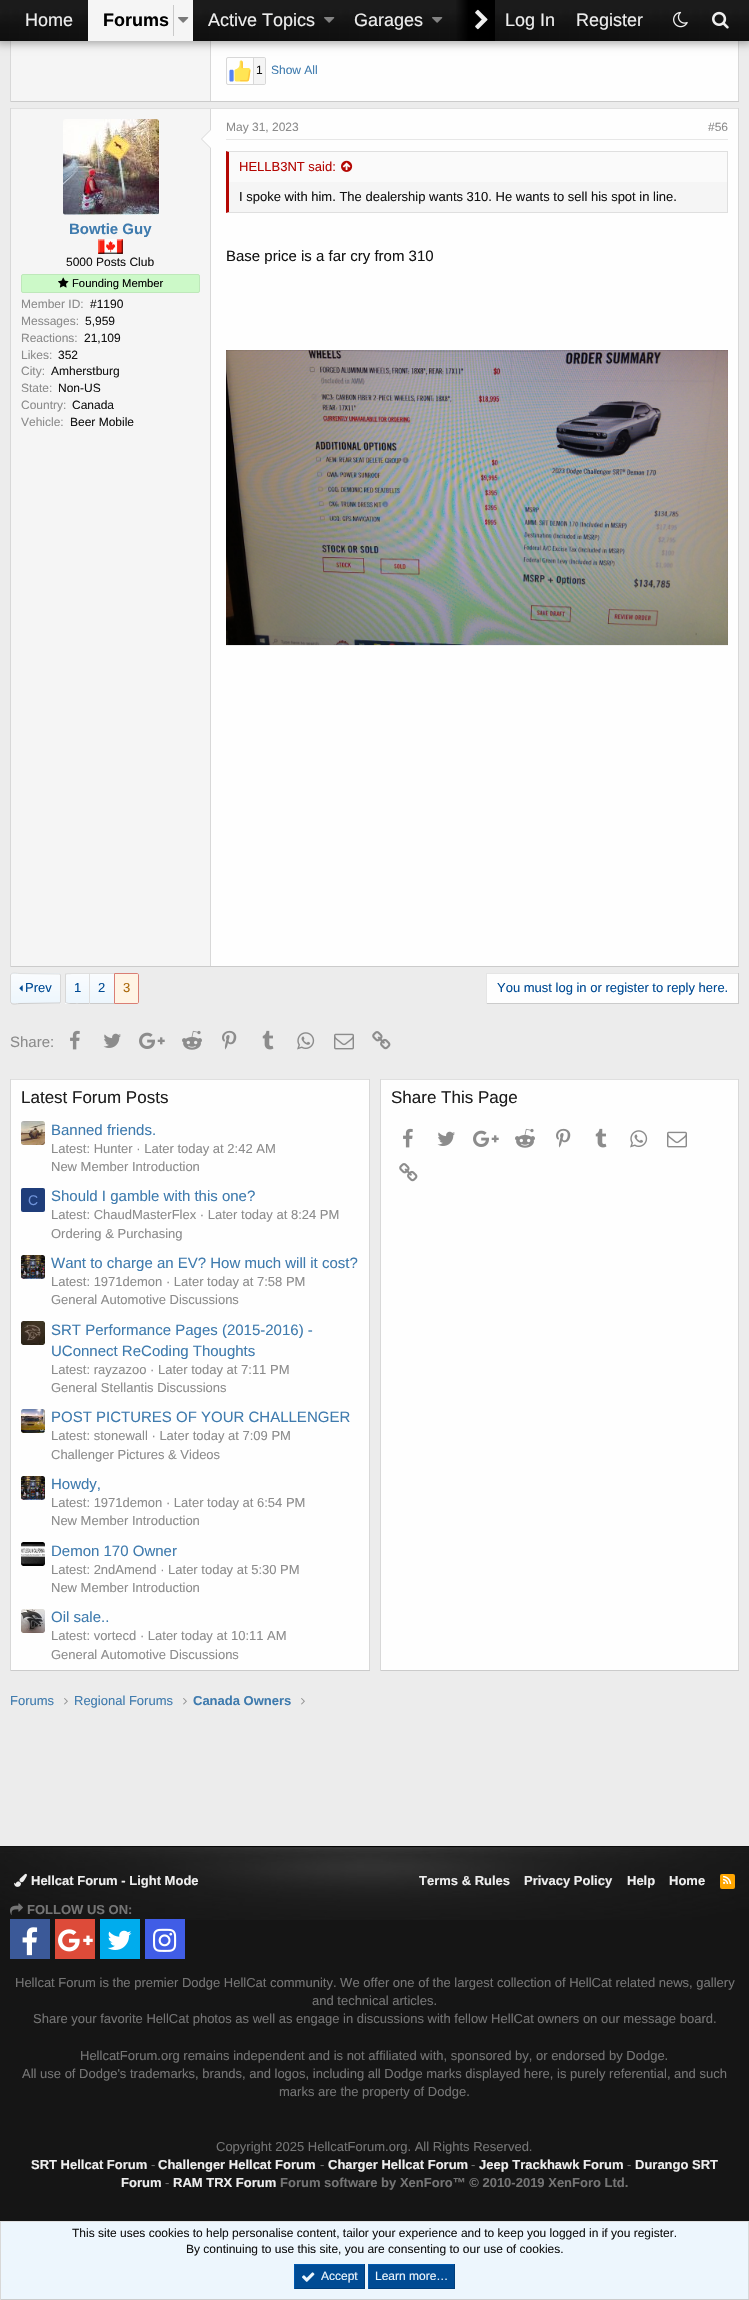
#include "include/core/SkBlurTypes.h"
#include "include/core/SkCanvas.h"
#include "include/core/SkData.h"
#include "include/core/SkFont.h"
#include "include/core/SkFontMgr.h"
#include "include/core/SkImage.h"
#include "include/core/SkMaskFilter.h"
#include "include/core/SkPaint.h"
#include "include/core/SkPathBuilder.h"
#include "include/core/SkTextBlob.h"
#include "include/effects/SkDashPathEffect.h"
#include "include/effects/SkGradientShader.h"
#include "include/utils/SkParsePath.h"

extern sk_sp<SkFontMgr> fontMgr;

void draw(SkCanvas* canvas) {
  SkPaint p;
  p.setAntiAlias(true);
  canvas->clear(SkColorSetRGB(236, 236, 236));
  p.setColor(SkColorSetRGB(254, 254, 254));
  canvas->drawRect(SkRect::MakeLTRB(211, 41, 738, 101), p);
  p.setColor(SkColorSetRGB(216, 216, 216));
  canvas->drawRect(SkRect::MakeLTRB(738, 41, 739, 102), p);
  p.setColor(SkColorSetRGB(203, 203, 203));
  canvas->drawRect(SkRect::MakeLTRB(10, 101, 739, 102), p);
  p.setColor(SkColorSetRGB(216, 216, 216));
  canvas->drawRect(SkRect::MakeLTRB(10, 41, 11, 102), p);
  p.setColor(SkColorSetRGB(245, 245, 245));
  canvas->drawRect(SkRect::MakeLTRB(11, 41, 210, 101), p);
  p.setColor(SkColorSetRGB(216, 216, 216));
  canvas->drawRect(SkRect::MakeLTRB(210, 41, 211, 101), p);
  p.setColor(SkColorSetARGB(77, 0, 0, 0));
  p.setMaskFilter(SkMaskFilter::MakeBlur(kNormal_SkBlurStyle, 4));
  canvas->drawRect(SkRect::MakeLTRB(-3, -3, 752, 44), p);
  p.setMaskFilter(nullptr);
  canvas->drawImageRect(SkImages::DeferredFromEncodedData(SkData::MakeFromFileName("images/1.png")), SkRect::MakeLTRB(0, 0, 749, 41), SkSamplingOptions());
  p.setColor(SkColorSetRGB(245, 245, 245));
  canvas->drawRect(SkRect::MakeLTRB(88, 0, 193, 41), p);
  p.setColor(SkColorSetRGB(202, 202, 202));
  canvas->drawRect(SkRect::MakeLTRB(173, 5, 174, 36), p);
  canvas->drawImageRect(SkImages::DeferredFromEncodedData(SkData::MakeFromFileName("images/2.png")), SkRect::MakeLTRB(178, 17, 189, 23), SkSamplingOptions());
  canvas->drawImageRect(SkImages::DeferredFromEncodedData(SkData::MakeFromFileName("images/3.png")), SkRect::MakeLTRB(324, 17, 335, 23), SkSamplingOptions());
  canvas->drawImageRect(SkImages::DeferredFromEncodedData(SkData::MakeFromFileName("images/4.png")), SkRect::MakeLTRB(432, 17, 443, 23), SkSamplingOptions());
  {
    const SkColor colors[] = {SkColorSetARGB(0, 0, 0, 0), SK_ColorBLACK};
    const float stops[] = {0, 0.33f};
    const SkPoint ends[] = {{455, 21}, {495, 21}};
    p.setShader(SkGradientShader::MakeLinear(ends, colors, stops, 2, SkTileMode::kClamp));
    p.setAlpha(255);
  }
  canvas->drawRect(SkRect::MakeLTRB(456, 0, 495, 41), p);
  canvas->drawImageRect(SkImages::DeferredFromEncodedData(SkData::MakeFromFileName("images/5.png")), SkRect::MakeLTRB(475, 9, 488, 30), SkSamplingOptions());
  canvas->drawImageRect(SkImages::DeferredFromEncodedData(SkData::MakeFromFileName("images/6.png")), SkRect::MakeLTRB(673, 11, 688, 28), SkSamplingOptions());
  canvas->drawImageRect(SkImages::DeferredFromEncodedData(SkData::MakeFromFileName("images/7.png")), SkRect::MakeLTRB(712, 11, 729, 29), SkSamplingOptions());
  p.setStyle(SkPaint::kStroke_Style);
  p.setStrokeWidth(1);
  p.setShader(nullptr);
  p.setColor(SkColorSetRGB(216, 216, 216));
  canvas->drawRoundRect(SkRect::MakeLTRB(226.5f, 57.5f, 265.5f, 84.5f), 1.5f, 1.5f, p);
  canvas->drawImageRect(SkImages::DeferredFromEncodedData(SkData::MakeFromFileName("images/8.png")), SkRect::MakeLTRB(229, 60, 251, 82), SkSamplingOptions());
  p.setStyle(SkPaint::kFill_Style);
  p.setColor(SkColorSetRGB(245, 245, 245));
  canvas->drawPath(SkPathBuilder().moveTo(253, 58).lineTo(264, 58).cubicTo(264.5f, 58, 265, 58.5f, 265, 59).lineTo(265, 83).cubicTo(265, 83.5f, 264.5f, 84, 264, 84).lineTo(253, 84).close().detach(), p);
  p.setColor(SkColorSetRGB(216, 216, 216));
  canvas->drawRect(SkRect::MakeLTRB(253, 58, 254, 84), p);
  p.setColor(SkColorSetRGB(254, 254, 254));
  canvas->drawRect(SkRect::MakeLTRB(211, 109, 738, 966), p);
  p.setColor(SkColorSetRGB(223, 223, 223));
  canvas->drawRect(SkRect::MakeLTRB(10, 108, 739, 109), p);
  p.setColor(SkColorSetRGB(216, 216, 216));
  canvas->drawRect(SkRect::MakeLTRB(738, 108, 739, 967), p);
  p.setColor(SkColorSetRGB(203, 203, 203));
  canvas->drawRect(SkRect::MakeLTRB(10, 966, 739, 967), p);
  p.setColor(SkColorSetRGB(216, 216, 216));
  canvas->drawRect(SkRect::MakeLTRB(10, 108, 11, 967), p);
  p.setColor(SkColorSetRGB(231, 231, 231));
  canvas->drawRect(SkRect::MakeLTRB(226, 139, 728, 140), p);
  p.setColor(SkColorSetRGB(245, 245, 245));
  canvas->drawRect(SkRect::MakeLTRB(229, 182, 727, 212), p);
  p.setColor(SkColorSetRGB(223, 223, 223));
  canvas->drawPath(SkPathBuilder().moveTo(226, 151).lineTo(728, 151).lineTo(727, 152).lineTo(229, 152).close().detach(), p);
  canvas->drawRect(SkRect::MakeLTRB(727, 151, 728, 213), p);
  canvas->drawPath(SkPathBuilder().moveTo(728, 213).lineTo(226, 213).lineTo(229, 212).lineTo(727, 212).close().detach(), p);
  p.setColor(SkColorSetRGB(180, 7, 3));
  canvas->drawPath(SkPathBuilder().moveTo(226, 213).lineTo(226, 151).lineTo(229, 152).lineTo(229, 212).close().detach(), p);
  p.setColor(SkColorSetRGB(250, 250, 250));
  canvas->drawRect(SkRect::MakeLTRB(229, 152, 727, 182), p);
  canvas->drawImageRect(SkImages::DeferredFromEncodedData(SkData::MakeFromFileName("images/9.png")), SkRect::MakeLTRB(341, 160, 353, 172), SkSamplingOptions());
  canvas->drawImageRect(SkImages::DeferredFromEncodedData(SkData::MakeFromFileName("images/10.png")), SkRect::MakeLTRB(226, 350, 728, 646), SkSamplingOptions());
  p.setColor(SkColorSetRGB(245, 245, 245));
  canvas->drawRect(SkRect::MakeLTRB(11, 109, 210, 966), p);
  p.setColor(SkColorSetRGB(216, 216, 216));
  canvas->drawRect(SkRect::MakeLTRB(210, 109, 211, 966), p);
  canvas->drawImageRect(SkImages::DeferredFromEncodedData(SkData::MakeFromFileName("images/11.png")), SkRect::MakeLTRB(63, 119, 159, 215), SkSamplingOptions());
  canvas->drawPath(SkPathBuilder().moveTo(211, 129).lineTo(211, 149).lineTo(201, 139).close().detach(), p);
  p.setColor(SkColorSetRGB(254, 254, 254));
  canvas->drawPath(SkPathBuilder().moveTo(211, 130).lineTo(211, 148).lineTo(202, 139).close().detach(), p);
  canvas->drawImageRect(SkImages::DeferredFromEncodedData(SkData::MakeFromFileName("images/12.png")), SkRect::MakeLTRB(98, 239, 123, 254), SkSamplingOptions());
  p.setColor(SkColorSetRGB(204, 249, 200));
  canvas->drawRoundRect(SkRect::MakeLTRB(21.5f, 274.5f, 199.5f, 292.5f), 1.5f, 1.5f, p);
  p.setStyle(SkPaint::kStroke_Style);
  p.setColor(SkColorSetRGB(190, 232, 186));
  canvas->drawRoundRect(SkRect::MakeLTRB(21.5f, 274.5f, 199.5f, 292.5f), 1.5f, 1.5f, p);
  canvas->drawImageRect(SkImages::DeferredFromEncodedData(SkData::MakeFromFileName("images/13.png")), SkRect::MakeLTRB(58, 277, 69, 288), SkSamplingOptions());
  canvas->save();
  canvas->clipPath(SkPathBuilder().moveTo(12, 973).lineTo(59, 973).cubicTo(60, 973, 61, 974, 61, 975).lineTo(61, 1002).cubicTo(61, 1003, 60, 1004, 59, 1004).lineTo(12, 1004).cubicTo(11, 1004, 10, 1003, 10, 1002).lineTo(10, 975).cubicTo(10, 974, 11, 973, 12, 973).close().detach(), true);
  p.setStyle(SkPaint::kFill_Style);
  {
    const SkColor colors[] = {SkColorSetRGB(237, 246, 253), SkColorSetRGB(250, 252, 254)};
    const float stops[] = {0, 1};
    const SkPoint ends[] = {{36, 974}, {36, 945}};
    p.setShader(SkGradientShader::MakeLinear(ends, colors, stops, 2, SkTileMode::kClamp));
    p.setAlpha(255);
  }
  canvas->drawRect(SkRect::MakeLTRB(10, 973, 61, 974), p);
  {
    const SkColor colors[] = {SkColorSetRGB(237, 246, 253), SkColorSetRGB(250, 252, 254)};
    const float stops[] = {0, 1};
    const SkPoint ends[] = {{36, 1003}, {36, 974}};
    p.setShader(SkGradientShader::MakeLinear(ends, colors, stops, 2, SkTileMode::kClamp));
    p.setAlpha(255);
  }
  canvas->drawRect(SkRect::MakeLTRB(10, 974, 61, 1003), p);
  {
    const SkColor colors[] = {SkColorSetRGB(237, 246, 253), SkColorSetRGB(250, 252, 254)};
    const float stops[] = {0, 1};
    const SkPoint ends[] = {{36, 1032}, {36, 1003}};
    p.setShader(SkGradientShader::MakeLinear(ends, colors, stops, 2, SkTileMode::kClamp));
    p.setAlpha(255);
  }
  canvas->drawRect(SkRect::MakeLTRB(10, 1003, 61, 1004), p);
  canvas->restore();
  p.setStyle(SkPaint::kStroke_Style);
  p.setShader(nullptr);
  p.setColor(SkColorSetRGB(223, 223, 223));
  canvas->drawPath(SkPathBuilder().moveTo(11, 974).cubicTo(13, 972, 17, 973.5f, 20, 973.5f).lineTo(60, 974).detach(), p);
  p.setColor(SkColorSetRGB(216, 216, 216));
  canvas->drawPath(SkPathBuilder().moveTo(60, 974).lineTo(60.5f, 975).lineTo(60.5f, 1002).lineTo(60, 1003).detach(), p);
  p.setColor(SkColorSetRGB(203, 203, 203));
  canvas->drawPath(SkPathBuilder().moveTo(60, 1003).lineTo(20, 1003.5f).cubicTo(17, 1003.5f, 13, 1005, 11, 1003).detach(), p);
  p.setColor(SkColorSetRGB(216, 216, 216));
  canvas->drawPath(SkPathBuilder().moveTo(11, 1003).lineTo(10.5f, 1002).lineTo(10.5f, 975).lineTo(11, 974).detach(), p);
  canvas->drawImageRect(SkImages::DeferredFromEncodedData(SkData::MakeFromFileName("images/14.png")), SkRect::MakeLTRB(19, 985, 23, 992), SkSamplingOptions());
  p.setStyle(SkPaint::kFill_Style);
  {
    const SkColor colors[] = {SkColorSetRGB(237, 246, 253), SkColorSetRGB(250, 252, 254)};
    const float stops[] = {0, 1};
    const SkPoint ends[] = {{78, 1003}, {78, 974}};
    p.setShader(SkGradientShader::MakeLinear(ends, colors, stops, 2, SkTileMode::kClamp));
    p.setAlpha(255);
  }
  canvas->drawRect(SkRect::MakeLTRB(65, 974, 89, 1003), p);
  {
    const SkColor colors[] = {SkColorSetRGB(237, 246, 253), SkColorSetRGB(250, 252, 254)};
    const float stops[] = {0, 1};
    const SkPoint ends[] = {{78, 1032}, {78, 1003}};
    p.setShader(SkGradientShader::MakeLinear(ends, colors, stops, 2, SkTileMode::kClamp));
    p.setAlpha(255);
  }
  canvas->drawRect(SkRect::MakeLTRB(65, 1003, 89, 1004), p);
  p.setShader(nullptr);
  p.setColor(SkColorSetRGB(223, 223, 223));
  canvas->drawPath(SkPathBuilder().moveTo(67, 973).lineTo(65.5f, 973.5f).lineTo(66.5f, 974.5f).cubicTo(67, 973.5f, 86.5f, 974, 89, 974).lineTo(89, 973).close().detach(), p);
  p.setColor(SkColorSetRGB(203, 203, 203));
  canvas->drawPath(SkPathBuilder().moveTo(89, 1004).cubicTo(86, 1004, 67, 1004.5f, 66, 1003).lineTo(66.5f, 1002.5f).cubicTo(67, 1003.5f, 86.5f, 1003, 89, 1003).close().detach(), p);
  p.setColor(SkColorSetRGB(216, 216, 216));
  canvas->drawPath(SkPathBuilder().moveTo(65, 974.5f).lineTo(65, 1002.5f).lineTo(66, 1003).lineTo(66.5f, 1002.5f).lineTo(66, 1002).lineTo(66, 975).lineTo(66.5f, 974.5f).lineTo(65.5f, 973.5f).close().detach(), p);
  {
    const SkColor colors[] = {SkColorSetRGB(237, 246, 253), SkColorSetRGB(250, 252, 254)};
    const float stops[] = {0, 1};
    const SkPoint ends[] = {{102, 1003}, {102, 974}};
    p.setShader(SkGradientShader::MakeLinear(ends, colors, stops, 2, SkTileMode::kClamp));
    p.setAlpha(255);
  }
  canvas->drawRect(SkRect::MakeLTRB(90, 974, 114, 1003), p);
  p.setShader(nullptr);
  p.setColor(SkColorSetRGB(223, 223, 223));
  canvas->drawRect(SkRect::MakeLTRB(89, 973, 114, 974), p);
  p.setColor(SkColorSetRGB(203, 203, 203));
  canvas->drawRect(SkRect::MakeLTRB(89, 1003, 114, 1004), p);
  p.setColor(SkColorSetRGB(223, 223, 223));
  canvas->drawRect(SkRect::MakeLTRB(89, 973, 90, 1004), p);
  p.setColor(SkColorSetRGB(255, 244, 229));
  canvas->drawPath(SkPathBuilder().moveTo(114.5f, 973.5f).lineTo(137, 973.5f).cubicTo(138, 973.5f, 138.5f, 974, 138.5f, 975).lineTo(138.5f, 1002).cubicTo(138.5f, 1003, 138, 1003.5f, 137, 1003.5f).lineTo(114.5f, 1003.5f).close().detach(), p);
  p.setStyle(SkPaint::kStroke_Style);
  p.setColor(SkColorSetRGB(218, 126, 116));
  canvas->drawPath(SkPathBuilder().moveTo(114.5f, 973.5f).lineTo(137, 973.5f).cubicTo(138, 973.5f, 138.5f, 974, 138.5f, 975).lineTo(138.5f, 1002).cubicTo(138.5f, 1003, 138, 1003.5f, 137, 1003.5f).lineTo(114.5f, 1003.5f).close().detach(), p);
  p.setStyle(SkPaint::kFill_Style);
  p.setColor(SkColorSetRGB(254, 254, 254));
  canvas->drawRect(SkRect::MakeLTRB(487, 974, 738, 1003), p);
  p.setColor(SkColorSetRGB(229, 229, 229));
  canvas->drawRect(SkRect::MakeLTRB(486, 973, 739, 974), p);
  p.setColor(SkColorSetRGB(203, 203, 203));
  canvas->drawRect(SkRect::MakeLTRB(738, 973, 739, 1004), p);
  canvas->drawRect(SkRect::MakeLTRB(486, 1003, 739, 1004), p);
  p.setColor(SkColorSetRGB(229, 229, 229));
  canvas->drawRect(SkRect::MakeLTRB(486, 973, 487, 1004), p);
  canvas->drawImageRect(SkImages::DeferredFromEncodedData(SkData::MakeFromFileName("images/15.png")), SkRect::MakeLTRB(70, 1030, 80, 1050), SkSamplingOptions());
  canvas->drawImageRect(SkImages::DeferredFromEncodedData(SkData::MakeFromFileName("images/16.png")), SkRect::MakeLTRB(103, 1033, 121, 1048), SkSamplingOptions());
  canvas->drawImageRect(SkImages::DeferredFromEncodedData(SkData::MakeFromFileName("images/17.png")), SkRect::MakeLTRB(139, 1032, 165, 1049), SkSamplingOptions());
  canvas->drawImageRect(SkImages::DeferredFromEncodedData(SkData::MakeFromFileName("images/18.png")), SkRect::MakeLTRB(182, 1030, 202, 1050), SkSamplingOptions());
  canvas->drawImageRect(SkImages::DeferredFromEncodedData(SkData::MakeFromFileName("images/19.png")), SkRect::MakeLTRB(222, 1030, 237, 1050), SkSamplingOptions());
  canvas->drawImageRect(SkImages::DeferredFromEncodedData(SkData::MakeFromFileName("images/20.png")), SkRect::MakeLTRB(262, 1030, 274, 1050), SkSamplingOptions());
  canvas->drawImageRect(SkImages::DeferredFromEncodedData(SkData::MakeFromFileName("images/21.png")), SkRect::MakeLTRB(297, 1032, 315, 1050), SkSamplingOptions());
  canvas->drawImageRect(SkImages::DeferredFromEncodedData(SkData::MakeFromFileName("images/22.png")), SkRect::MakeLTRB(334, 1033, 354, 1050), SkSamplingOptions());
  canvas->drawImageRect(SkImages::DeferredFromEncodedData(SkData::MakeFromFileName("images/23.png")), SkRect::MakeLTRB(372, 1031, 391, 1050), SkSamplingOptions());
  p.setColor(SkColorSetRGB(254, 254, 254));
  canvas->drawRect(SkRect::MakeLTRB(11, 1080, 369, 1670), p);
  p.setColor(SkColorSetRGB(223, 223, 223));
  canvas->drawRect(SkRect::MakeLTRB(10, 1079, 370, 1080), p);
  p.setColor(SkColorSetRGB(216, 216, 216));
  canvas->drawRect(SkRect::MakeLTRB(369, 1079, 370, 1671), p);
  p.setColor(SkColorSetRGB(203, 203, 203));
  canvas->drawRect(SkRect::MakeLTRB(10, 1670, 370, 1671), p);
  p.setColor(SkColorSetRGB(216, 216, 216));
  canvas->drawRect(SkRect::MakeLTRB(10, 1079, 11, 1671), p);
  canvas->drawImageRect(SkImages::DeferredFromEncodedData(SkData::MakeFromFileName("images/24.png")), SkRect::MakeLTRB(21, 1121, 45, 1145), SkSamplingOptions());
  p.setColor(SkColorSetRGB(31, 61, 122));
  canvas->drawRoundRect(SkRect::MakeLTRB(21, 1188, 45, 1212), 2, 2, p);
  canvas->drawImageRect(SkImages::DeferredFromEncodedData(SkData::MakeFromFileName("images/25.png")), SkRect::MakeLTRB(21, 1255, 45, 1279), SkSamplingOptions());
  canvas->drawImageRect(SkImages::DeferredFromEncodedData(SkData::MakeFromFileName("images/26.png")), SkRect::MakeLTRB(21, 1321, 45, 1345), SkSamplingOptions());
  canvas->drawImageRect(SkImages::DeferredFromEncodedData(SkData::MakeFromFileName("images/27.png")), SkRect::MakeLTRB(21, 1409, 45, 1433), SkSamplingOptions());
  canvas->drawImageRect(SkImages::DeferredFromEncodedData(SkData::MakeFromFileName("images/25.png")), SkRect::MakeLTRB(21, 1476, 45, 1500), SkSamplingOptions());
  canvas->drawImageRect(SkImages::DeferredFromEncodedData(SkData::MakeFromFileName("images/28.png")), SkRect::MakeLTRB(21, 1542, 45, 1566), SkSamplingOptions());
  canvas->drawImageRect(SkImages::DeferredFromEncodedData(SkData::MakeFromFileName("images/29.png")), SkRect::MakeLTRB(21, 1609, 45, 1633), SkSamplingOptions());
  p.setColor(SkColorSetRGB(254, 254, 254));
  canvas->drawRect(SkRect::MakeLTRB(381, 1080, 738, 1670), p);
  p.setColor(SkColorSetRGB(223, 223, 223));
  canvas->drawRect(SkRect::MakeLTRB(380, 1079, 739, 1080), p);
  p.setColor(SkColorSetRGB(216, 216, 216));
  canvas->drawRect(SkRect::MakeLTRB(738, 1079, 739, 1671), p);
  p.setColor(SkColorSetRGB(203, 203, 203));
  canvas->drawRect(SkRect::MakeLTRB(380, 1670, 739, 1671), p);
  p.setColor(SkColorSetRGB(216, 216, 216));
  canvas->drawRect(SkRect::MakeLTRB(380, 1079, 381, 1671), p);
  canvas->drawImageRect(SkImages::DeferredFromEncodedData(SkData::MakeFromFileName("images/30.png")), SkRect::MakeLTRB(403, 1128, 413, 1148), SkSamplingOptions());
  canvas->drawImageRect(SkImages::DeferredFromEncodedData(SkData::MakeFromFileName("images/31.png")), SkRect::MakeLTRB(437, 1131, 455, 1146), SkSamplingOptions());
  canvas->drawImageRect(SkImages::DeferredFromEncodedData(SkData::MakeFromFileName("images/32.png")), SkRect::MakeLTRB(473, 1130, 499, 1147), SkSamplingOptions());
  canvas->drawImageRect(SkImages::DeferredFromEncodedData(SkData::MakeFromFileName("images/33.png")), SkRect::MakeLTRB(515, 1128, 535, 1148), SkSamplingOptions());
  canvas->drawImageRect(SkImages::DeferredFromEncodedData(SkData::MakeFromFileName("images/34.png")), SkRect::MakeLTRB(556, 1128, 571, 1148), SkSamplingOptions());
  canvas->drawImageRect(SkImages::DeferredFromEncodedData(SkData::MakeFromFileName("images/35.png")), SkRect::MakeLTRB(595, 1128, 607, 1148), SkSamplingOptions());
  canvas->drawImageRect(SkImages::DeferredFromEncodedData(SkData::MakeFromFileName("images/36.png")), SkRect::MakeLTRB(630, 1130, 648, 1148), SkSamplingOptions());
  canvas->drawImageRect(SkImages::DeferredFromEncodedData(SkData::MakeFromFileName("images/37.png")), SkRect::MakeLTRB(667, 1131, 687, 1148), SkSamplingOptions());
  canvas->drawImageRect(SkImages::DeferredFromEncodedData(SkData::MakeFromFileName("images/38.png")), SkRect::MakeLTRB(399, 1163, 418, 1182), SkSamplingOptions());
  canvas->drawImageRect(SkImages::DeferredFromEncodedData(SkData::MakeFromFileName("images/39.png")), SkRect::MakeLTRB(64, 1698, 68, 1705), SkSamplingOptions());
  canvas->drawImageRect(SkImages::DeferredFromEncodedData(SkData::MakeFromFileName("images/39.png")), SkRect::MakeLTRB(183, 1698, 187, 1705), SkSamplingOptions());
  canvas->drawImageRect(SkImages::DeferredFromEncodedData(SkData::MakeFromFileName("images/39.png")), SkRect::MakeLTRB(301, 1698, 305, 1705), SkSamplingOptions());
  p.setColor(SkColorSetRGB(21, 21, 21));
  canvas->drawRect(SkRect::MakeLTRB(0, 1920, 749, 2221), p);
  canvas->drawImageRect(SkImages::DeferredFromEncodedData(SkData::MakeFromFileName("images/40.png")), SkRect::MakeLTRB(0, 1846, 749, 1920), SkSamplingOptions());
  canvas->drawImageRect(SkImages::DeferredFromEncodedData(SkData::MakeFromFileName("images/41.png")), SkRect::MakeLTRB(14, 1873, 27, 1887), SkSamplingOptions());
  p.setColor(SkColorSetRGB(255, 165, 0));
  canvas->drawRoundRect(SkRect::MakeLTRB(720, 1874, 735, 1889), 2, 2, p);
  canvas->drawImageRect(SkImages::DeferredFromEncodedData(SkData::MakeFromFileName("images/42.png")), SkRect::MakeLTRB(723, 1875, 732, 1884), SkSamplingOptions());
  canvas->drawImageRect(SkImages::DeferredFromEncodedData(SkData::MakeFromFileName("images/43.png")), SkRect::MakeLTRB(10, 1903, 23, 1915), SkSamplingOptions());
  p.setColor(SkColorSetRGB(59, 89, 152));
  canvas->drawRect(SkRect::MakeLTRB(10, 1919, 50, 1959), p);
  canvas->drawImageRect(SkImages::DeferredFromEncodedData(SkData::MakeFromFileName("images/44.png")), SkRect::MakeLTRB(22, 1927, 38, 1956), SkSamplingOptions());
  p.setColor(SkColorSetRGB(221, 75, 57));
  canvas->drawRect(SkRect::MakeLTRB(55, 1919, 95, 1959), p);
  canvas->drawImageRect(SkImages::DeferredFromEncodedData(SkData::MakeFromFileName("images/45.png")), SkRect::MakeLTRB(58, 1929, 93, 1952), SkSamplingOptions());
  p.setColor(SkColorSetRGB(0, 172, 237));
  canvas->drawRect(SkRect::MakeLTRB(100, 1919, 140, 1959), p);
  canvas->drawImageRect(SkImages::DeferredFromEncodedData(SkData::MakeFromFileName("images/46.png")), SkRect::MakeLTRB(107, 1930, 132, 1950), SkSamplingOptions());
  p.setColor(SkColorSetRGB(64, 93, 230));
  canvas->drawRect(SkRect::MakeLTRB(145, 1919, 185, 1959), p);
  canvas->drawImageRect(SkImages::DeferredFromEncodedData(SkData::MakeFromFileName("images/47.png")), SkRect::MakeLTRB(153, 1928, 177, 1952), SkSamplingOptions());
  p.setColor(SkColorSetRGB(237, 246, 253));
  canvas->drawRect(SkRect::MakeLTRB(1, 2222, 748, 2299), p);
  p.setColor(SkColorSetRGB(223, 223, 223));
  canvas->drawRect(SkRect::MakeLTRB(0, 2221, 749, 2222), p);
  p.setColor(SkColorSetRGB(216, 216, 216));
  canvas->drawRect(SkRect::MakeLTRB(748, 2221, 749, 2300), p);
  p.setColor(SkColorSetRGB(203, 203, 203));
  canvas->drawRect(SkRect::MakeLTRB(0, 2299, 749, 2300), p);
  p.setColor(SkColorSetRGB(216, 216, 216));
  canvas->drawRect(SkRect::MakeLTRB(0, 2221, 1, 2300), p);
  p.setColor(SkColorSetRGB(0, 75, 148));
  canvas->drawRect(SkRect::MakeLTRB(295, 2265, 364, 2288), p);
  p.setColor(SkColorSetRGB(0, 88, 174));
  canvas->drawRect(SkRect::MakeLTRB(294, 2264, 365, 2265), p);
  p.setColor(SkColorSetRGB(0, 62, 123));
  canvas->drawRect(SkRect::MakeLTRB(364, 2264, 365, 2289), p);
  canvas->drawRect(SkRect::MakeLTRB(294, 2288, 365, 2289), p);
  p.setColor(SkColorSetRGB(0, 88, 174));
  canvas->drawRect(SkRect::MakeLTRB(294, 2264, 295, 2289), p);
  canvas->drawImageRect(SkImages::DeferredFromEncodedData(SkData::MakeFromFileName("images/48.png")), SkRect::MakeLTRB(302, 2272, 315, 2282), SkSamplingOptions());
  p.setColor(SkColorSetRGB(0, 75, 148));
  canvas->drawRect(SkRect::MakeLTRB(369, 2265, 454, 2288), p);
  p.setColor(SkColorSetRGB(0, 88, 174));
  canvas->drawRect(SkRect::MakeLTRB(368, 2264, 455, 2265), p);
  p.setColor(SkColorSetRGB(0, 62, 123));
  canvas->drawRect(SkRect::MakeLTRB(454, 2264, 455, 2289), p);
  canvas->drawRect(SkRect::MakeLTRB(368, 2288, 455, 2289), p);
  p.setColor(SkColorSetRGB(0, 88, 174));
  canvas->drawRect(SkRect::MakeLTRB(368, 2264, 369, 2289), p);
  SkFont font1(fontMgr->matchFamilyStyle("Liberation Sans", SkFontStyle::Normal()), 18);
  font1.setSubpixel(true);
  p.setColor(SkColorSetRGB(238, 238, 238));
  canvas->drawString("Home", 25, 26, font1, p);
  SkFont font2(fontMgr->matchFamilyStyle("Liberation Sans", SkFontStyle::Bold()), 18);
  font2.setSubpixel(true);
  p.setColor(SK_ColorBLACK);
  canvas->drawString("Forums", 103, 26, font2, p);
  p.setColor(SkColorSetRGB(238, 238, 238));
  canvas->drawString("Active Topics", 208, 26, font1, p);
  canvas->drawString("Garages", 354, 26, font1, p);
  canvas->drawString("Log In", 505, 26, font1, p);
  canvas->drawString("Register", 576, 26, font1, p);
  SkFont font3(fontMgr->matchFamilyStyle("Liberation Sans", SkFontStyle::Normal()), 12);
  font3.setSubpixel(true);
  p.setColor(SkColorSetRGB(20, 20, 20));
  canvas->drawString("1", 256, 74, font3, p);
  p.setColor(SkColorSetRGB(63, 123, 174));
  canvas->drawString("Show All", 271, 74, font3, p);
  p.setColor(SkColorSetRGB(140, 140, 140));
  canvas->drawString("May 31, 2023", 226, 131, font3, p);
  canvas->drawString("#56", 708, 131, font3, p);
  SkFont font4(fontMgr->matchFamilyStyle("Liberation Sans", SkFontStyle::Normal()), 13);
  font4.setSubpixel(true);
  p.setColor(SkColorSetRGB(180, 7, 3));
  canvas->drawString("HELLB3NT said:", 239, 171, font4, p);
  p.setColor(SkColorSetRGB(20, 20, 20));
  canvas->drawString("I spoke with him. The dealership wants 310. He wants to sell his spot in line.", 239, 201, font4, p);
  SkFont font5(fontMgr->matchFamilyStyle("Liberation Sans", SkFontStyle::Normal()), 15);
  font5.setSubpixel(true);
  canvas->drawString("Base price is a far cry from 310", 226, 261, font5, p);
  SkFont font6(fontMgr->matchFamilyStyle("Liberation Sans", SkFontStyle::Bold()), 15);
  font6.setSubpixel(true);
  p.setColor(SkColorSetRGB(63, 123, 174));
  canvas->drawString("Bowtie Guy", 69, 234, font6, p);
  p.setColor(SkColorSetRGB(20, 20, 20));
  canvas->drawString("5000 Posts Club", 66, 266, font3, p);
  SkFont font7(fontMgr->matchFamilyStyle("Liberation Sans", SkFontStyle::Normal()), 11.25f);
  font7.setSubpixel(true);
  p.setColor(SK_ColorBLACK);
  canvas->drawString("Founding Member", 72, 287, font7, p);
  p.setColor(SkColorSetRGB(140, 140, 140));
  canvas->drawString("Member ID:", 21, 308, font3, p);
  p.setColor(SkColorSetRGB(20, 20, 20));
  canvas->drawString("#1190", 90, 308, font3, p);
  p.setColor(SkColorSetRGB(140, 140, 140));
  canvas->drawString("Messages:", 21, 325, font3, p);
  p.setColor(SkColorSetRGB(20, 20, 20));
  canvas->drawString("5,959", 85, 325, font3, p);
  p.setColor(SkColorSetRGB(140, 140, 140));
  canvas->drawString("Reactions:", 21, 342, font3, p);
  p.setColor(SkColorSetRGB(20, 20, 20));
  canvas->drawString("21,109", 84, 342, font3, p);
  p.setColor(SkColorSetRGB(140, 140, 140));
  canvas->drawString("Likes:", 21, 359, font3, p);
  p.setColor(SkColorSetRGB(20, 20, 20));
  canvas->drawString("352", 58, 359, font3, p);
  p.setColor(SkColorSetRGB(140, 140, 140));
  canvas->drawString("City:", 21, 375, font3, p);
  p.setColor(SkColorSetRGB(20, 20, 20));
  canvas->drawString("Amherstburg", 51, 375, font3, p);
  p.setColor(SkColorSetRGB(140, 140, 140));
  canvas->drawString("State:", 21, 392, font3, p);
  p.setColor(SkColorSetRGB(20, 20, 20));
  canvas->drawString("Non-US", 58, 392, font3, p);
  p.setColor(SkColorSetRGB(140, 140, 140));
  canvas->drawString("Country:", 21, 409, font3, p);
  p.setColor(SkColorSetRGB(20, 20, 20));
  canvas->drawString("Canada", 72, 409, font3, p);
  p.setColor(SkColorSetRGB(140, 140, 140));
  canvas->drawString("Vehicle:", 21, 426, font3, p);
  p.setColor(SkColorSetRGB(20, 20, 20));
  canvas->drawString("Beer Mobile", 70, 426, font3, p);
  p.setColor(SkColorSetRGB(0, 75, 148));
  canvas->drawString("Prev", 25, 992, font4, p);
  canvas->drawString("1", 74, 992, font4, p);
  canvas->drawString("2", 98, 992, font4, p);
  p.setColor(SkColorSetRGB(170, 103, 9));
  canvas->drawString("3", 123, 992, font4, p);
  p.setColor(SkColorSetRGB(0, 75, 148));
  canvas->drawString("You must log in or register to reply here.", 497, 992, font4, p);
  p.setColor(SkColorSetRGB(140, 140, 140));
  canvas->drawString("Share:", 10, 1047, font5, p);
  SkFont font8(fontMgr->matchFamilyStyle("Liberation Sans", SkFontStyle::Normal()), 17);
  font8.setSubpixel(true);
  p.setColor(SkColorSetRGB(29, 29, 29));
  canvas->drawString("Latest Forum Posts", 21, 1103, font8, p);
  p.setColor(SkColorSetRGB(63, 123, 174));
  canvas->drawString("Banned friends.", 51, 1135, font5, p);
  p.setColor(SkColorSetRGB(140, 140, 140));
  canvas->drawString("Latest: Hunter · Later today at 2:42 AM", 51, 1153, font4, p);
  canvas->drawString("New Member Introduction", 51, 1171, font4, p);
  SkFont font9(fontMgr->matchFamilyStyle("Liberation Sans", SkFontStyle::Normal()), 14);
  font9.setSubpixel(true);
  p.setColor(SkColorSetRGB(112, 148, 219));
  canvas->drawString("C", 28, 1205, font9, p);
  p.setColor(SkColorSetRGB(63, 123, 174));
  canvas->drawString("Should I gamble with this one?", 51, 1201, font5, p);
  p.setColor(SkColorSetRGB(140, 140, 140));
  canvas->drawString("Latest: ChaudMasterFlex · Later today at 8:24 PM", 51, 1219, font4, p);
  canvas->drawString("Ordering & Purchasing", 51, 1238, font4, p);
  p.setColor(SkColorSetRGB(63, 123, 174));
  canvas->drawString("Want to charge an EV? How much will it cost?", 51, 1268, font5, p);
  p.setColor(SkColorSetRGB(140, 140, 140));
  canvas->drawString("Latest: 1971demon · Later today at 7:58 PM", 51, 1286, font4, p);
  canvas->drawString("General Automotive Discussions", 51, 1304, font4, p);
  p.setColor(SkColorSetRGB(63, 123, 174));
  canvas->drawString("SRT Performance Pages (2015-2016) -", 51, 1335, font5, p);
  canvas->drawString("UConnect ReCoding Thoughts", 51, 1356, font5, p);
  p.setColor(SkColorSetRGB(140, 140, 140));
  canvas->drawString("Latest: rayzazoo · Later today at 7:11 PM", 51, 1374, font4, p);
  canvas->drawString("General Stellantis Discussions", 51, 1392, font4, p);
  p.setColor(SkColorSetRGB(63, 123, 174));
  canvas->drawString("POST PICTURES OF YOUR CHALLENGER", 51, 1422, font5, p);
  p.setColor(SkColorSetRGB(140, 140, 140));
  canvas->drawString("Latest: stonewall · Later today at 7:09 PM", 51, 1440, font4, p);
  canvas->drawString("Challenger Pictures & Videos", 51, 1459, font4, p);
  p.setColor(SkColorSetRGB(63, 123, 174));
  canvas->drawString("Howdy,", 51, 1489, font5, p);
  p.setColor(SkColorSetRGB(140, 140, 140));
  canvas->drawString("Latest: 1971demon · Later today at 6:54 PM", 51, 1507, font4, p);
  canvas->drawString("New Member Introduction", 51, 1525, font4, p);
  p.setColor(SkColorSetRGB(63, 123, 174));
  canvas->drawString("Demon 170 Owner", 51, 1556, font5, p);
  p.setColor(SkColorSetRGB(140, 140, 140));
  canvas->drawString("Latest: 2ndAmend · Later today at 5:30 PM", 51, 1574, font4, p);
  canvas->drawString("New Member Introduction", 51, 1592, font4, p);
  p.setColor(SkColorSetRGB(63, 123, 174));
  canvas->drawString("Oil sale..", 51, 1622, font5, p);
  p.setColor(SkColorSetRGB(140, 140, 140));
  canvas->drawString("Latest: vortecd · Later today at 10:11 AM", 51, 1640, font4, p);
  canvas->drawString("General Automotive Discussions", 51, 1659, font4, p);
  p.setColor(SkColorSetRGB(29, 29, 29));
  canvas->drawString("Share This Page", 391, 1103, font8, p);
  p.setColor(SkColorSetRGB(63, 123, 174));
  canvas->drawString("Forums", 10, 1705, font4, p);
  canvas->drawString("Regional Forums", 74, 1705, font4, p);
  SkFont font10(fontMgr->matchFamilyStyle("Liberation Sans", SkFontStyle::Bold()), 13);
  font10.setSubpixel(true);
  canvas->drawString("Canada Owners", 193, 1705, font10, p);
  p.setColor(SkColorSetRGB(238, 238, 238));
  canvas->drawString("Hellcat Forum - Light Mode", 31, 1885, font10, p);
  canvas->drawString("Terms & Rules", 419, 1885, font10, p);
  canvas->drawString("Privacy Policy", 524, 1885, font10, p);
  canvas->drawString("Help", 627, 1885, font10, p);
  canvas->drawString("Home", 669, 1885, font10, p);
  p.setColor(SkColorSetRGB(116, 116, 116));
  canvas->drawString("FOLLOW US ON:", 27, 1914, font10, p);
  canvas->drawString("Hellcat Forum is the premier Dodge HellCat community. We offer one of the largest collection of HellCat related news, gallery", 15, 1987, font4, p);
  canvas->drawString("and technical articles.", 312, 2005, font4, p);
  canvas->drawString("Share your favorite HellCat photos as well as engage in discussions with fellow HellCat owners on our message board.", 33, 2023, font4, p);
  canvas->drawString("HellcatForum.org remains independent and is not affiliated with, sponsored by, or endorsed by Dodge.", 80, 2060, font4, p);
  canvas->drawString("All use of Dodge's trademarks, brands, and logos, including all Dodge marks displayed here, is purely referential, and such", 22, 2078, font4, p);
  canvas->drawString("marks are the property of Dodge.", 279, 2096, font4, p);
  canvas->drawString("Copyright 2025 HellcatForum.org. All Rights Reserved.", 216, 2151, font4, p);
  p.setColor(SkColorSetRGB(238, 238, 238));
  canvas->drawString("SRT Hellcat Forum", 31, 2169, font10, p);
  p.setColor(SkColorSetRGB(116, 116, 116));
  canvas->drawString("-", 151, 2169, font4, p);
  p.setColor(SkColorSetRGB(238, 238, 238));
  canvas->drawString("Challenger Hellcat Forum", 158, 2169, font10, p);
  p.setColor(SkColorSetRGB(116, 116, 116));
  canvas->drawString("-", 320, 2169, font4, p);
  p.setColor(SkColorSetRGB(238, 238, 238));
  canvas->drawString("Charger Hellcat Forum", 328, 2169, font10, p);
  p.setColor(SkColorSetRGB(116, 116, 116));
  canvas->drawString("-", 471, 2169, font4, p);
  p.setColor(SkColorSetRGB(238, 238, 238));
  canvas->drawString("Jeep Trackhawk Forum", 479, 2169, font10, p);
  p.setColor(SkColorSetRGB(116, 116, 116));
  canvas->drawString("-", 627, 2169, font4, p);
  p.setColor(SkColorSetRGB(238, 238, 238));
  canvas->drawString("Durango SRT", 635, 2169, font10, p);
  canvas->drawString("Forum", 121, 2187, font10, p);
  p.setColor(SkColorSetRGB(116, 116, 116));
  canvas->drawString("-", 165, 2187, font4, p);
  p.setColor(SkColorSetRGB(238, 238, 238));
  canvas->drawString("RAM TRX Forum", 173, 2187, font10, p);
  p.setColor(SkColorSetRGB(116, 116, 116));
  canvas->drawString("Forum software by XenForo™ © 2010-2019 XenForo Ltd.", 280, 2187, font10, p);
  p.setColor(SkColorSetRGB(20, 20, 20));
  canvas->drawString("This site uses cookies to help personalise content, tailor your experience and to keep you logged in if you register.", 72, 2237, font3, p);
  canvas->drawString("By continuing to use this site, you are consenting to our use of cookies.", 186, 2253, font3, p);
  p.setColor(SkColorSetRGB(237, 246, 253));
  canvas->drawString("Accept", 321, 2280, font3, p);
  canvas->drawString("Learn more…", 375, 2280, font3, p);
}
